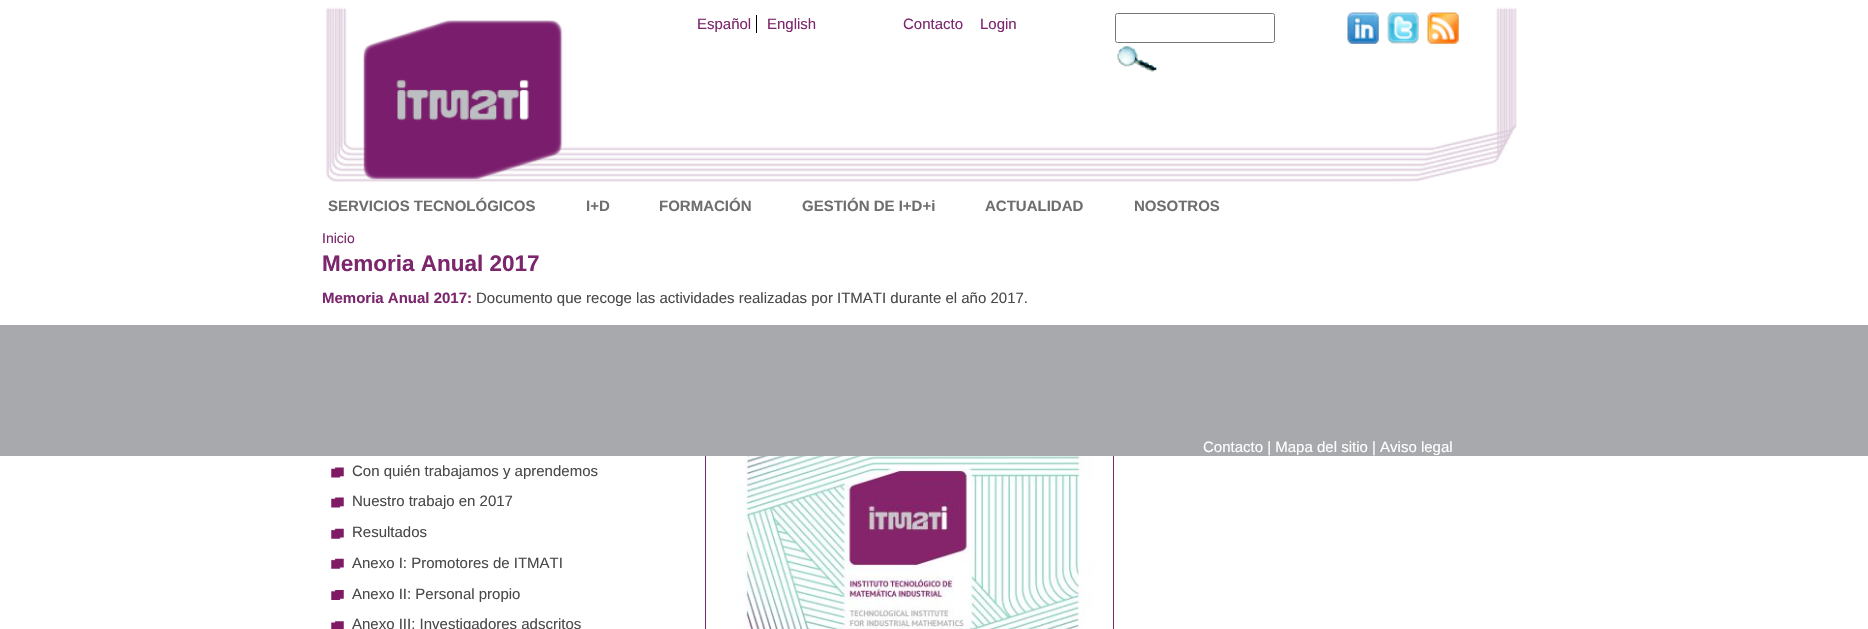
#include "include/core/SkBlurTypes.h"
#include "include/core/SkCanvas.h"
#include "include/core/SkData.h"
#include "include/core/SkFont.h"
#include "include/core/SkFontMgr.h"
#include "include/core/SkImage.h"
#include "include/core/SkMaskFilter.h"
#include "include/core/SkPaint.h"
#include "include/core/SkPathBuilder.h"
#include "include/core/SkTextBlob.h"
#include "include/effects/SkDashPathEffect.h"
#include "include/effects/SkGradientShader.h"
#include "include/utils/SkParsePath.h"

extern sk_sp<SkFontMgr> fontMgr;

void draw(SkCanvas* canvas) {
  SkPaint p;
  p.setAntiAlias(true);
  canvas->clear(SK_ColorWHITE);
  canvas->drawImageRect(SkImages::DeferredFromEncodedData(SkData::MakeFromFileName("images/5.png")), SkRect::MakeLTRB(326, 7, 1517, 182), SkSamplingOptions());
  p.setColor(SK_ColorBLACK);
  canvas->drawRect(SkRect::MakeLTRB(756, 15, 757, 33), p);
  p.setStyle(SkPaint::kStroke_Style);
  p.setStrokeWidth(1);
  p.setColor(SkColorSetRGB(118, 118, 118));
  canvas->drawRoundRect(SkRect::MakeLTRB(1115.5f, 13.5f, 1274.5f, 42.5f), 2, 2, p);
  canvas->drawImageRect(SkImages::DeferredFromEncodedData(SkData::MakeFromFileName("images/1.png")), SkRect::MakeLTRB(1117, 46, 1157, 73), SkSamplingOptions());
  canvas->drawImageRect(SkImages::DeferredFromEncodedData(SkData::MakeFromFileName("images/2.png")), SkRect::MakeLTRB(1347, 12, 1379, 44), SkSamplingOptions());
  canvas->drawImageRect(SkImages::DeferredFromEncodedData(SkData::MakeFromFileName("images/3.png")), SkRect::MakeLTRB(1387, 12, 1419, 44), SkSamplingOptions());
  canvas->drawImageRect(SkImages::DeferredFromEncodedData(SkData::MakeFromFileName("images/4.png")), SkRect::MakeLTRB(1427, 12, 1459, 44), SkSamplingOptions());
  canvas->drawImageRect(SkImages::DeferredFromEncodedData(SkData::MakeFromFileName("images/6.png")), SkRect::MakeLTRB(362, 20, 563, 180), SkSamplingOptions());
  p.setColor(SkColorSetRGB(124, 38, 109));
  canvas->drawRect(SkRect::MakeLTRB(705.5f, 328.5f, 1113.5f, 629.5f), p);
  canvas->drawImageRect(SkImages::DeferredFromEncodedData(SkData::MakeFromFileName("images/7.png")), SkRect::MakeLTRB(706, 456, 1113, 629), SkSamplingOptions());
  canvas->drawImageRect(SkImages::DeferredFromEncodedData(SkData::MakeFromFileName("images/8.png")), SkRect::MakeLTRB(331, 467, 344, 478), SkSamplingOptions());
  canvas->drawImageRect(SkImages::DeferredFromEncodedData(SkData::MakeFromFileName("images/8.png")), SkRect::MakeLTRB(331, 497, 344, 508), SkSamplingOptions());
  canvas->drawImageRect(SkImages::DeferredFromEncodedData(SkData::MakeFromFileName("images/9.png")), SkRect::MakeLTRB(331, 528, 344, 539), SkSamplingOptions());
  canvas->drawImageRect(SkImages::DeferredFromEncodedData(SkData::MakeFromFileName("images/9.png")), SkRect::MakeLTRB(331, 558, 344, 569), SkSamplingOptions());
  canvas->drawImageRect(SkImages::DeferredFromEncodedData(SkData::MakeFromFileName("images/10.png")), SkRect::MakeLTRB(331, 590, 344, 600), SkSamplingOptions());
  canvas->drawImageRect(SkImages::DeferredFromEncodedData(SkData::MakeFromFileName("images/11.png")), SkRect::MakeLTRB(331, 621, 344, 629), SkSamplingOptions());
  p.setStyle(SkPaint::kFill_Style);
  p.setColor(SkColorSetRGB(168, 169, 173));
  canvas->drawRect(SkRect::MakeLTRB(0, 325, 1868, 456), p);
  SkFont font1(fontMgr->matchFamilyStyle("Liberation Sans", SkFontStyle::Normal()), 15);
  font1.setSubpixel(true);
  p.setColor(SkColorSetRGB(124, 38, 109));
  canvas->drawString("Español", 697, 29, font1, p);
  canvas->drawString("English", 767, 29, font1, p);
  canvas->drawString("Contacto", 903, 29, font1, p);
  canvas->drawString("Login", 980, 29, font1, p);
  SkFont font2(fontMgr->matchFamilyStyle("Liberation Sans", SkFontStyle::Bold()), 15);
  font2.setSubpixel(true);
  p.setColor(SkColorSetRGB(110, 110, 110));
  canvas->drawString("SERVICIOS TECNOLÓGICOS", 328, 211, font2, p);
  canvas->drawString("I+D", 586, 211, font2, p);
  canvas->drawString("FORMACIÓN", 659, 211, font2, p);
  canvas->drawString("GESTIÓN DE I+D+i", 802, 211, font2, p);
  canvas->drawString("ACTUALIDAD", 985, 211, font2, p);
  canvas->drawString("NOSOTROS", 1134, 211, font2, p);
  SkFont font3(fontMgr->matchFamilyStyle("Liberation Sans", SkFontStyle::Normal()), 14);
  font3.setSubpixel(true);
  p.setColor(SkColorSetRGB(124, 38, 109));
  canvas->drawString("Inicio", 322, 243, font3, p);
  SkFont font4(fontMgr->matchFamilyStyle("Liberation Sans", SkFontStyle::Bold()), 22.5f);
  font4.setSubpixel(true);
  canvas->drawString("Memoria Anual 2017", 322, 271, font4, p);
  canvas->drawString("Memoria Anual 2017:", 322, 303, font2, p);
  p.setColor(SkColorSetRGB(73, 73, 73));
  canvas->drawString("Documento que recoge las actividades realizadas por ITMATI durante el año 2017.", 476, 303, font1, p);
  canvas->drawString("Con quién trabajamos y aprendemos", 352, 476, font1, p);
  canvas->drawString("Nuestro trabajo en 2017", 352, 506, font1, p);
  canvas->drawString("Resultados", 352, 537, font1, p);
  canvas->drawString("Anexo I: Promotores de ITMATI", 352, 568, font1, p);
  canvas->drawString("Anexo II: Personal propio", 352, 599, font1, p);
  canvas->drawString("Anexo III: Investigadores adscritos", 352, 629, font1, p);
  p.setColor(SK_ColorWHITE);
  canvas->drawString("Contacto | Mapa del sitio | Aviso legal", 1203, 452, font1, p);
}
